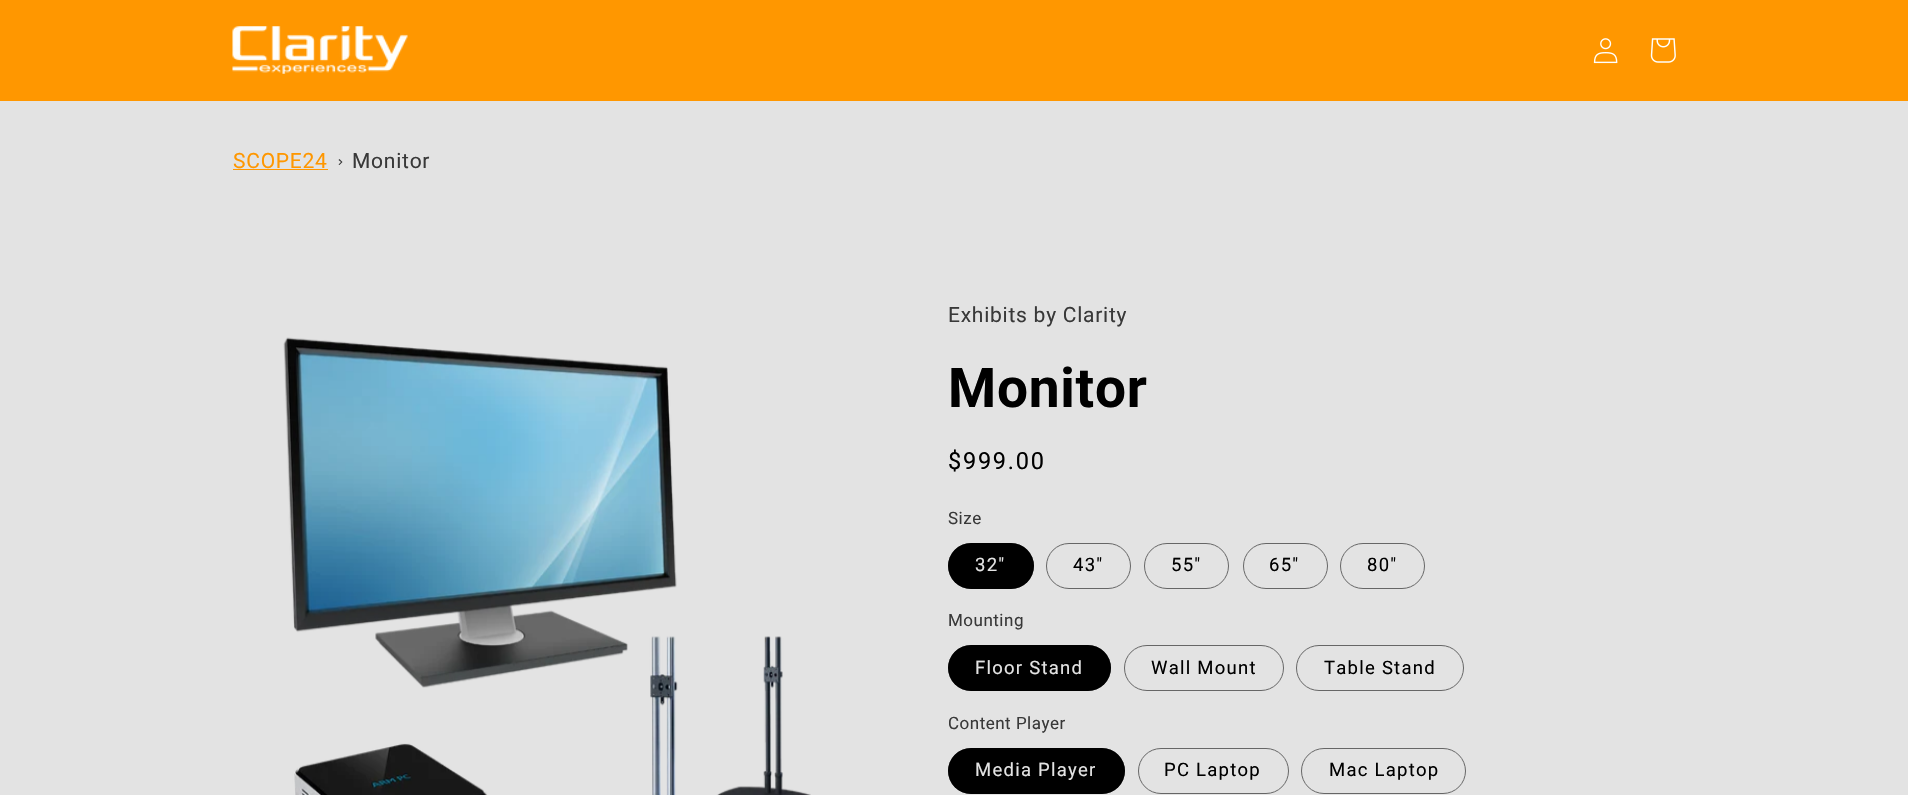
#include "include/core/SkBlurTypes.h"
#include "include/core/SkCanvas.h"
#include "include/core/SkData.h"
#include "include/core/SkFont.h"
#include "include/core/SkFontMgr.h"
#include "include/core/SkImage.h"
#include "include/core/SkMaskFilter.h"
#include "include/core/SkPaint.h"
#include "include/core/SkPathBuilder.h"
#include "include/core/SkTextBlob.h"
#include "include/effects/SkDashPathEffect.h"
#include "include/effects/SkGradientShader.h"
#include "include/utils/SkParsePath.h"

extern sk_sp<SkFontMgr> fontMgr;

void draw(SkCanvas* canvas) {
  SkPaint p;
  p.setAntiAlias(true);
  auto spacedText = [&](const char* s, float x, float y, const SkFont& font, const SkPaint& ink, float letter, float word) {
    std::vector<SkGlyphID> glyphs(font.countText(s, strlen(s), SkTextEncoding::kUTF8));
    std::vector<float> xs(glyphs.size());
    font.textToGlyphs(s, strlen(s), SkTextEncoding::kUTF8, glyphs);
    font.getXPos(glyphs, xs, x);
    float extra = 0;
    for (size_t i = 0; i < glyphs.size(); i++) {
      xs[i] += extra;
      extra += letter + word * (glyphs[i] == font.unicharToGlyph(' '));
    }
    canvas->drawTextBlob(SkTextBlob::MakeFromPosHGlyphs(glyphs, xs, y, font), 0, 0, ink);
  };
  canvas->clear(SkColorSetRGB(227, 227, 227));
  p.setColor(SkColorSetRGB(255, 151, 0));
  canvas->drawRect(SkRect::MakeLTRB(0, 0, 1908, 101), p);
  canvas->drawImageRect(SkImages::DeferredFromEncodedData(SkData::MakeFromFileName("images/1.png")), SkRect::MakeLTRB(232, 26, 408, 74), SkSamplingOptions());
  canvas->drawImageRect(SkImages::DeferredFromEncodedData(SkData::MakeFromFileName("images/2.png")), SkRect::MakeLTRB(1593, 38, 1618, 64), SkSamplingOptions());
  canvas->drawImageRect(SkImages::DeferredFromEncodedData(SkData::MakeFromFileName("images/3.png")), SkRect::MakeLTRB(1650, 38, 1676, 63), SkSamplingOptions());
  canvas->drawRect(SkRect::MakeLTRB(233, 169, 328, 170), p);
  p.setColor(SkColorSetRGB(57, 57, 57));
  canvas->drawPath(SkPathBuilder().moveTo(339.5f, 159).lineTo(342.5f, 162).lineTo(341, 162).lineTo(338.5f, 160).close().moveTo(342.5f, 162).lineTo(339.5f, 165).lineTo(338.5f, 164.5f).lineTo(341, 162).close().detach(), p);
  canvas->drawImageRect(SkImages::DeferredFromEncodedData(SkData::MakeFromFileName("images/4.png")), SkRect::MakeLTRB(283, 337, 811, 795), SkSamplingOptions());
  p.setColor(SK_ColorBLACK);
  canvas->drawRoundRect(SkRect::MakeLTRB(948, 543, 1034, 589), 23, 23, p);
  p.setStyle(SkPaint::kStroke_Style);
  p.setStrokeWidth(1);
  p.setColor(SkColorSetARGB(140, 0, 0, 0));
  canvas->drawRoundRect(SkRect::MakeLTRB(948.5f, 543.5f, 1033.5f, 588.5f), 22.5f, 22.5f, p);
  p.setColor(SkColorSetRGB(102, 102, 102));
  canvas->drawRoundRect(SkRect::MakeLTRB(1046.5f, 543.5f, 1130.5f, 588.5f), 22.5f, 22.5f, p);
  canvas->drawRoundRect(SkRect::MakeLTRB(1144.5f, 543.5f, 1228.5f, 588.5f), 22.5f, 22.5f, p);
  canvas->drawRoundRect(SkRect::MakeLTRB(1243.5f, 543.5f, 1327.5f, 588.5f), 22.5f, 22.5f, p);
  canvas->drawRoundRect(SkRect::MakeLTRB(1340.5f, 543.5f, 1424.5f, 588.5f), 22.5f, 22.5f, p);
  p.setStyle(SkPaint::kFill_Style);
  p.setColor(SK_ColorBLACK);
  canvas->drawRoundRect(SkRect::MakeLTRB(948, 645, 1111, 691), 23, 23, p);
  p.setStyle(SkPaint::kStroke_Style);
  p.setColor(SkColorSetARGB(140, 0, 0, 0));
  canvas->drawRoundRect(SkRect::MakeLTRB(948.5f, 645.5f, 1110.5f, 690.5f), 22.5f, 22.5f, p);
  p.setColor(SkColorSetRGB(102, 102, 102));
  canvas->drawRoundRect(SkRect::MakeLTRB(1124.5f, 645.5f, 1283.5f, 690.5f), 22.5f, 22.5f, p);
  canvas->drawRoundRect(SkRect::MakeLTRB(1296.5f, 645.5f, 1463.5f, 690.5f), 22.5f, 22.5f, p);
  p.setStyle(SkPaint::kFill_Style);
  p.setColor(SK_ColorBLACK);
  canvas->drawRoundRect(SkRect::MakeLTRB(948, 748, 1125, 794), 23, 23, p);
  p.setStyle(SkPaint::kStroke_Style);
  p.setColor(SkColorSetARGB(140, 0, 0, 0));
  canvas->drawRoundRect(SkRect::MakeLTRB(948.5f, 748.5f, 1124.5f, 793.5f), 22.5f, 22.5f, p);
  p.setColor(SkColorSetRGB(102, 102, 102));
  canvas->drawRoundRect(SkRect::MakeLTRB(1138.5f, 748.5f, 1288.5f, 793.5f), 22.5f, 22.5f, p);
  canvas->drawRoundRect(SkRect::MakeLTRB(1301.5f, 748.5f, 1465.5f, 793.5f), 22.5f, 22.5f, p);
  SkFont font1(fontMgr->matchFamilyStyle("Roboto", SkFontStyle::Normal()), 21);
  font1.setSubpixel(true);
  p.setStyle(SkPaint::kFill_Style);
  p.setColor(SkColorSetRGB(255, 151, 0));
  spacedText("SCOPE24", 233, 168, font1, p, 0.75f, 0);
  p.setColor(SkColorSetRGB(57, 57, 57));
  spacedText("Monitor", 352, 168, font1, p, 0.75f, 0);
  spacedText("Exhibits by Clarity", 948, 322, font1, p, 0.75f, 0);
  SkFont font2(fontMgr->matchFamilyStyle("Roboto", SkFontStyle::Bold()), 55);
  font2.setSubpixel(true);
  p.setColor(SK_ColorBLACK);
  spacedText("Monitor", 948, 407, font2, p, 0.75f, 0);
  SkFont font3(fontMgr->matchFamilyStyle("Roboto", SkFontStyle::Normal()), 23.5f);
  font3.setSubpixel(true);
  spacedText("$999.00", 948, 469, font3, p, 1.75f, 0);
  SkFont font4(fontMgr->matchFamilyStyle("Roboto", SkFontStyle::Normal()), 17);
  font4.setSubpixel(true);
  p.setColor(SkColorSetRGB(57, 57, 57));
  spacedText("Size", 948, 524, font4, p, 0.5f, 0);
  SkFont font5(fontMgr->matchFamilyStyle("Roboto", SkFontStyle::Normal()), 18.5f);
  font5.setSubpixel(true);
  p.setColor(SkColorSetRGB(227, 227, 227));
  spacedText("32\"", 975, 571, font5, p, 1.25f, 0);
  p.setColor(SK_ColorBLACK);
  spacedText("43\"", 1073, 571, font5, p, 1.25f, 0);
  spacedText("55\"", 1171, 571, font5, p, 1.25f, 0);
  spacedText("65\"", 1269, 571, font5, p, 1.25f, 0);
  spacedText("80\"", 1367, 571, font5, p, 1.25f, 0);
  p.setColor(SkColorSetRGB(57, 57, 57));
  spacedText("Mounting", 948, 626, font4, p, 0.5f, 0);
  p.setColor(SkColorSetRGB(227, 227, 227));
  spacedText("Floor Stand", 975, 674, font5, p, 1.25f, 0);
  p.setColor(SK_ColorBLACK);
  spacedText("Wall Mount", 1151, 674, font5, p, 1.25f, 0);
  spacedText("Table Stand", 1324, 674, font5, p, 1.25f, 0);
  p.setColor(SkColorSetRGB(57, 57, 57));
  spacedText("Content Player", 948, 729, font4, p, 0.5f, 0);
  p.setColor(SkColorSetRGB(227, 227, 227));
  spacedText("Media Player", 975, 776, font5, p, 1.25f, 0);
  p.setColor(SK_ColorBLACK);
  spacedText("PC Laptop", 1164, 776, font5, p, 1.25f, 0);
  spacedText("Mac Laptop", 1329, 776, font5, p, 1.25f, 0);
}
